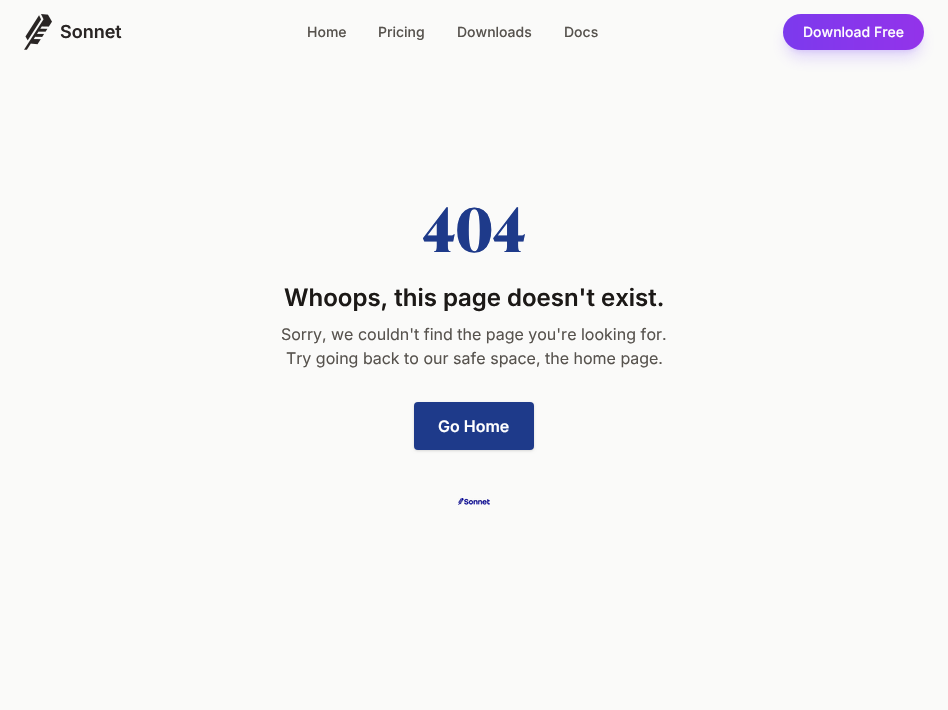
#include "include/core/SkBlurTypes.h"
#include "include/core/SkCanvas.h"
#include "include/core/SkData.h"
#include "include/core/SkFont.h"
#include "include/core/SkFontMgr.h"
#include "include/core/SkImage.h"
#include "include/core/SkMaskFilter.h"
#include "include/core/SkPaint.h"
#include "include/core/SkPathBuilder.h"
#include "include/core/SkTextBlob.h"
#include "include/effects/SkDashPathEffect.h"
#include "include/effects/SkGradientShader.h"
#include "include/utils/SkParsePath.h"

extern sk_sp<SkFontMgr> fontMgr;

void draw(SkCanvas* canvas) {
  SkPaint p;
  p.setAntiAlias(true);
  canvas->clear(SkColorSetRGB(250, 250, 249));
  canvas->drawImageRect(SkImages::DeferredFromEncodedData(SkData::MakeFromFileName("images/1.png")), SkRect::MakeLTRB(24, 14, 52, 50), SkSamplingOptions());
  p.setColor(SkColorSetARGB(64, 139, 92, 246));
  p.setMaskFilter(SkMaskFilter::MakeBlur(kNormal_SkBlurStyle, 3));
  canvas->drawRoundRect(SkRect::MakeLTRB(787, 22, 920, 50), 14, 14, p);
  p.setMaskFilter(nullptr);
  p.setMaskFilter(SkMaskFilter::MakeBlur(kNormal_SkBlurStyle, 7.5f));
  canvas->drawRoundRect(SkRect::MakeLTRB(786, 27, 921, 57), 15, 15, p);
  p.setMaskFilter(nullptr);
  {
    const SkColor colors[] = {SkColorSetRGB(124, 58, 237), SkColorSetRGB(147, 51, 234)};
    const float stops[] = {0, 1};
    const SkPoint ends[] = {{783, 32}, {924, 32}};
    p.setShader(SkGradientShader::MakeLinear(ends, colors, stops, 2, SkTileMode::kClamp));
    p.setAlpha(255);
  }
  canvas->drawRoundRect(SkRect::MakeLTRB(783, 14, 924, 50), 18, 18, p);
  p.setShader(nullptr);
  p.setColor(SkColorSetARGB(26, 0, 0, 0));
  p.setMaskFilter(SkMaskFilter::MakeBlur(kNormal_SkBlurStyle, 1));
  canvas->drawRoundRect(SkRect::MakeLTRB(415, 404, 533, 450), 3, 3, p);
  p.setMaskFilter(nullptr);
  p.setMaskFilter(SkMaskFilter::MakeBlur(kNormal_SkBlurStyle, 1.5f));
  canvas->drawRoundRect(SkRect::MakeLTRB(414, 403, 534, 451), 4, 4, p);
  p.setMaskFilter(nullptr);
  p.setColor(SkColorSetRGB(30, 58, 138));
  canvas->drawRoundRect(SkRect::MakeLTRB(414, 402, 534, 450), 4, 4, p);
  canvas->drawImageRect(SkImages::DeferredFromEncodedData(SkData::MakeFromFileName("images/2.png")), SkRect::MakeLTRB(458, 498, 490, 505), SkSamplingOptions());
  SkFont font1(fontMgr->matchFamilyStyle("Inter", SkFontStyle(600, SkFontStyle::kNormal_Width, SkFontStyle::kUpright_Slant)), 18);
  font1.setSubpixel(true);
  p.setColor(SkColorSetRGB(41, 37, 36));
  canvas->drawString("Sonnet", 60, 38, font1, p);
  SkFont font2(fontMgr->matchFamilyStyle("Inter", SkFontStyle(500, SkFontStyle::kNormal_Width, SkFontStyle::kUpright_Slant)), 14);
  font2.setSubpixel(true);
  p.setColor(SkColorSetRGB(87, 83, 78));
  canvas->drawString("Home", 307, 37, font2, p);
  canvas->drawString("Pricing", 378, 37, font2, p);
  canvas->drawString("Downloads", 457, 37, font2, p);
  canvas->drawString("Docs", 564, 37, font2, p);
  p.setColor(SK_ColorWHITE);
  canvas->drawString("Download Free", 803, 37, font2, p);
  SkFont font3(fontMgr->matchFamilyStyle("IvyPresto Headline", SkFontStyle::Bold()), 60);
  font3.setSubpixel(true);
  p.setColor(SkColorSetRGB(30, 58, 138));
  canvas->drawString("404", 423, 252, font3, p);
  SkFont font4(fontMgr->matchFamilyStyle("Inter", SkFontStyle(600, SkFontStyle::kNormal_Width, SkFontStyle::kUpright_Slant)), 24);
  font4.setSubpixel(true);
  p.setColor(SkColorSetRGB(28, 25, 23));
  canvas->drawString("Whoops, this page doesn't exist.", 284, 306, font4, p);
  SkFont font5(fontMgr->matchFamilyStyle("Inter", SkFontStyle::Normal()), 16);
  font5.setSubpixel(true);
  p.setColor(SkColorSetRGB(87, 83, 78));
  canvas->drawString("Sorry, we couldn't find the page you're looking for.", 281, 340, font5, p);
  canvas->drawString("Try going back to our safe space, the home page.", 286, 364, font5, p);
  SkFont font6(fontMgr->matchFamilyStyle("Inter", SkFontStyle(600, SkFontStyle::kNormal_Width, SkFontStyle::kUpright_Slant)), 16);
  font6.setSubpixel(true);
  p.setColor(SK_ColorWHITE);
  canvas->drawString("Go Home", 438, 432, font6, p);
}
